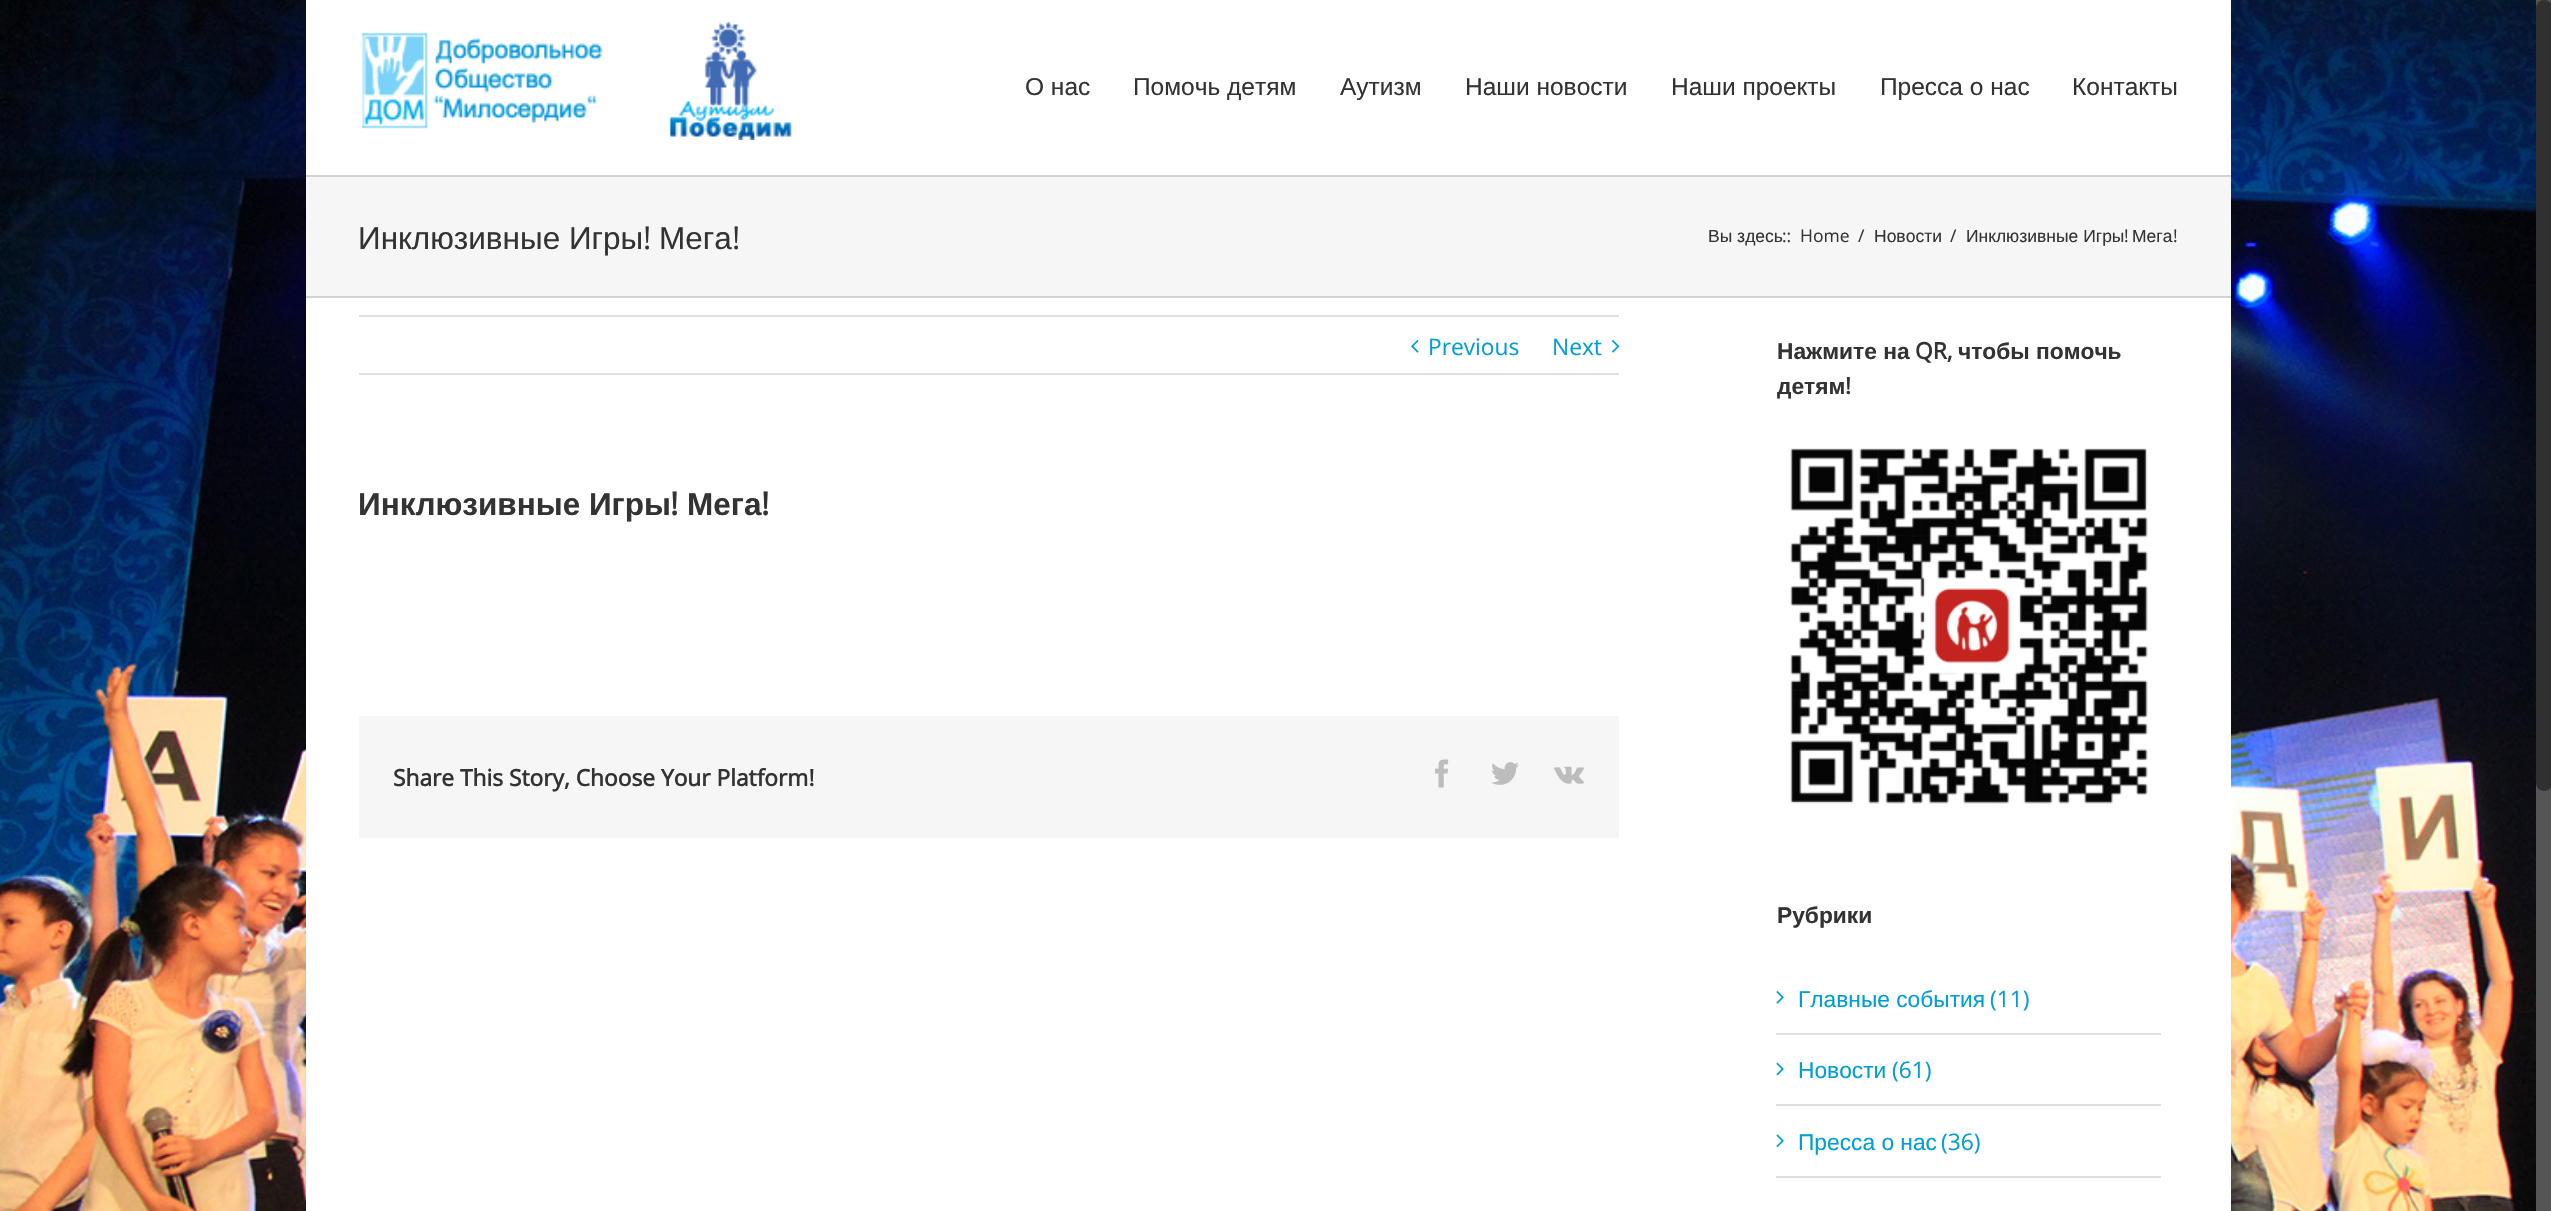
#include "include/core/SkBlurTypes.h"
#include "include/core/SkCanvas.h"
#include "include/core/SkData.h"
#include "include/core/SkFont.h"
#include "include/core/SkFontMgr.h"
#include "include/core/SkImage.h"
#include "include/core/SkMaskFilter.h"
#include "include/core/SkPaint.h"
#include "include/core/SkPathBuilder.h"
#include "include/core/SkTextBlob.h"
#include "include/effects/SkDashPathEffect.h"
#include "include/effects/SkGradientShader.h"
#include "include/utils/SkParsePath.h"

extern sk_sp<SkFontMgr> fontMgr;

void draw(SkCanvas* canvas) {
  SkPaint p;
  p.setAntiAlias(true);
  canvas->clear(SK_ColorWHITE);
  canvas->drawImageRect(SkImages::DeferredFromEncodedData(SkData::MakeFromFileName("images/1.png")), SkRect::MakeLTRB(0, 0, 2536, 1211), SkSamplingOptions());
  p.setColor(SK_ColorWHITE);
  canvas->drawRect(SkRect::MakeLTRB(306, 0, 2231, 175), p);
  canvas->drawImageRect(SkImages::DeferredFromEncodedData(SkData::MakeFromFileName("images/2.png")), SkRect::MakeLTRB(361, 20, 792, 140), SkSamplingOptions());
  p.setColor(SkColorSetRGB(246, 246, 246));
  canvas->drawRect(SkRect::MakeLTRB(306, 177, 2231, 296), p);
  p.setColor(SkColorSetRGB(210, 211, 212));
  canvas->drawRect(SkRect::MakeLTRB(306, 175, 2231, 177), p);
  canvas->drawRect(SkRect::MakeLTRB(306, 296, 2231, 298), p);
  p.setColor(SK_ColorWHITE);
  canvas->drawRect(SkRect::MakeLTRB(306, 298, 2231, 1211), p);
  p.setColor(SkColorSetRGB(224, 222, 222));
  canvas->drawRect(SkRect::MakeLTRB(359, 315, 1619, 317), p);
  canvas->drawRect(SkRect::MakeLTRB(359, 373, 1619, 375), p);
  canvas->drawImageRect(SkImages::DeferredFromEncodedData(SkData::MakeFromFileName("images/3.png")), SkRect::MakeLTRB(1411, 340, 1419, 353), SkSamplingOptions());
  canvas->drawImageRect(SkImages::DeferredFromEncodedData(SkData::MakeFromFileName("images/4.png")), SkRect::MakeLTRB(1612, 340, 1620, 353), SkSamplingOptions());
  p.setColor(SkColorSetRGB(246, 246, 246));
  canvas->drawRect(SkRect::MakeLTRB(359, 716, 1619, 838), p);
  canvas->drawImageRect(SkImages::DeferredFromEncodedData(SkData::MakeFromFileName("images/5.png")), SkRect::MakeLTRB(1435, 759, 1449, 788), SkSamplingOptions());
  canvas->drawImageRect(SkImages::DeferredFromEncodedData(SkData::MakeFromFileName("images/6.png")), SkRect::MakeLTRB(1491, 762, 1519, 785), SkSamplingOptions());
  canvas->drawImageRect(SkImages::DeferredFromEncodedData(SkData::MakeFromFileName("images/7.png")), SkRect::MakeLTRB(1554, 766, 1584, 784), SkSamplingOptions());
  canvas->drawImageRect(SkImages::DeferredFromEncodedData(SkData::MakeFromFileName("images/8.png")), SkRect::MakeLTRB(1790, 448, 2148, 804), SkSamplingOptions());
  p.setColor(SkColorSetRGB(224, 222, 222));
  canvas->drawRect(SkRect::MakeLTRB(1776, 1033, 2161, 1035), p);
  canvas->drawImageRect(SkImages::DeferredFromEncodedData(SkData::MakeFromFileName("images/9.png")), SkRect::MakeLTRB(1776, 991, 1784, 1004), SkSamplingOptions());
  canvas->drawRect(SkRect::MakeLTRB(1776, 1104, 2161, 1106), p);
  canvas->drawImageRect(SkImages::DeferredFromEncodedData(SkData::MakeFromFileName("images/10.png")), SkRect::MakeLTRB(1776, 1062, 1784, 1076), SkSamplingOptions());
  canvas->drawRect(SkRect::MakeLTRB(1776, 1176, 2161, 1178), p);
  canvas->drawImageRect(SkImages::DeferredFromEncodedData(SkData::MakeFromFileName("images/11.png")), SkRect::MakeLTRB(1776, 1134, 1784, 1148), SkSamplingOptions());
  p.setColor(SkColorSetRGB(85, 85, 85));
  canvas->drawRect(SkRect::MakeLTRB(2536, 0, 2551, 1211), p);
  p.setColor(SkColorSetRGB(48, 48, 48));
  canvas->drawRoundRect(SkRect::MakeLTRB(2536, 0, 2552, 791), 8, 8, p);
  SkFont font1(fontMgr->matchFamilyStyle("Liberation Sans", SkFontStyle::Normal()), 24.5f);
  font1.setSubpixel(true);
  p.setColor(SkColorSetRGB(51, 51, 51));
  canvas->drawString("О нас", 1025, 95, font1, p);
  canvas->drawString("Помочь детям", 1133, 95, font1, p);
  canvas->drawString("Аутизм", 1340, 95, font1, p);
  canvas->drawString("Наши новости", 1465, 95, font1, p);
  canvas->drawString("Наши проекты", 1671, 95, font1, p);
  canvas->drawString("Пресса о нас", 1880, 95, font1, p);
  canvas->drawString("Контакты", 2072, 95, font1, p);
  SkFont font2(fontMgr->matchFamilyStyle("Liberation Sans", SkFontStyle::Normal()), 31.5f);
  font2.setSubpixel(true);
  canvas->drawString("Инклюзивные Игры", 358, 249, font2, p);
  SkFont font3(fontMgr->matchFamilyStyle("Open Sans", SkFontStyle::Normal()), 31.5f);
  font3.setSubpixel(true);
  canvas->drawString("!", 643, 249, font3, p);
  canvas->drawString("Мега", 659, 249, font2, p);
  canvas->drawString("!", 732, 249, font3, p);
  SkFont font4(fontMgr->matchFamilyStyle("Liberation Sans", SkFontStyle::Normal()), 17.5f);
  font4.setSubpixel(true);
  canvas->drawString("Вы здесь", 1708, 242, font4, p);
  SkFont font5(fontMgr->matchFamilyStyle("Open Sans", SkFontStyle::Normal()), 17.5f);
  font5.setSubpixel(true);
  canvas->drawString("::", 1782, 242, font5, p);
  canvas->drawString("Home", 1800, 242, font5, p);
  canvas->drawString("/", 1858, 242, font5, p);
  canvas->drawString("Новости", 1874, 242, font4, p);
  canvas->drawString("/", 1950, 242, font5, p);
  canvas->drawString("Инклюзивные Игры", 1966, 242, font4, p);
  canvas->drawString("!", 2124, 242, font5, p);
  canvas->drawString("Мега", 2132, 242, font4, p);
  canvas->drawString("!", 2173, 242, font5, p);
  SkFont font6(fontMgr->matchFamilyStyle("Open Sans", SkFontStyle::Normal()), 22.75f);
  font6.setSubpixel(true);
  p.setColor(SkColorSetRGB(0, 158, 210));
  canvas->drawString("Previous", 1428, 355, font6, p);
  canvas->drawString("Next", 1552, 355, font6, p);
  SkFont font7(fontMgr->matchFamilyStyle("Liberation Sans", SkFontStyle::Bold()), 31.5f);
  font7.setSubpixel(true);
  p.setColor(SkColorSetRGB(51, 51, 51));
  canvas->drawString("Инклюзивные Игры", 358, 515, font7, p);
  SkFont font8(fontMgr->matchFamilyStyle("Open Sans", SkFontStyle::Bold()), 31.5f);
  font8.setSubpixel(true);
  canvas->drawString("!", 670, 515, font8, p);
  canvas->drawString("Мега", 687, 515, font7, p);
  canvas->drawString("!", 761, 515, font8, p);
  SkFont font9(fontMgr->matchFamilyStyle("Open Sans", SkFontStyle::Bold()), 22.75f);
  font9.setSubpixel(true);
  canvas->drawString("Share This Story, Choose Your Platform!", 393, 786, font9, p);
  SkFont font10(fontMgr->matchFamilyStyle("Liberation Sans", SkFontStyle::Bold()), 22.75f);
  font10.setSubpixel(true);
  canvas->drawString("Нажмите на", 1777, 359, font10, p);
  canvas->drawString("QR,", 1915, 359, font9, p);
  canvas->drawString("чтобы помочь", 1958, 359, font10, p);
  canvas->drawString("детям", 1777, 394, font10, p);
  canvas->drawString("!", 1845, 394, font9, p);
  canvas->drawString("Рубрики", 1777, 923, font10, p);
  SkFont font11(fontMgr->matchFamilyStyle("Liberation Sans", SkFontStyle::Normal()), 22.75f);
  font11.setSubpixel(true);
  p.setColor(SkColorSetRGB(0, 158, 210));
  canvas->drawString("Главные события", 1798, 1007, font11, p);
  canvas->drawString("(11)", 1990, 1007, font6, p);
  canvas->drawString("Новости", 1798, 1078, font11, p);
  canvas->drawString("(61)", 1892, 1078, font6, p);
  canvas->drawString("Пресса о нас", 1798, 1150, font11, p);
  canvas->drawString("(36)", 1941, 1150, font6, p);
}
